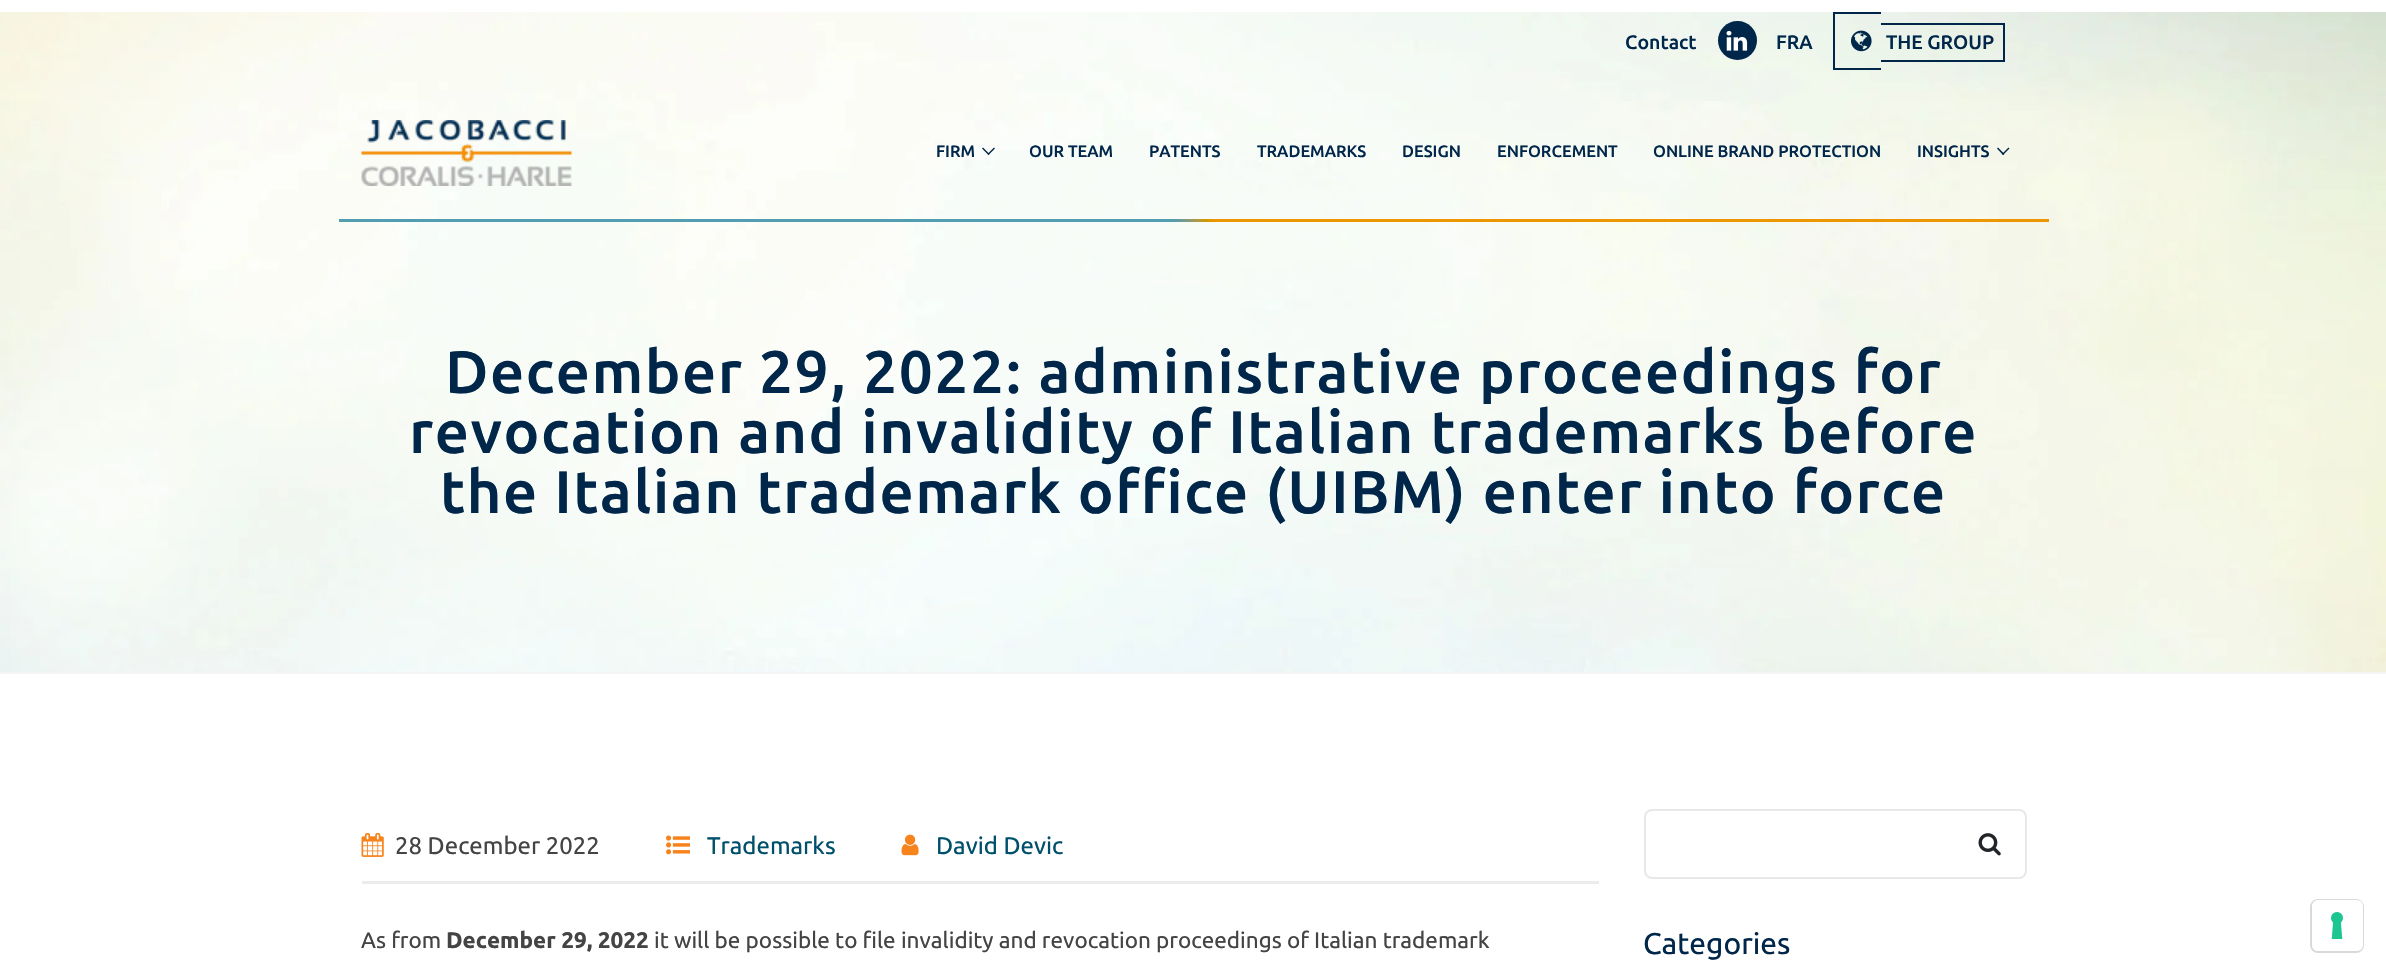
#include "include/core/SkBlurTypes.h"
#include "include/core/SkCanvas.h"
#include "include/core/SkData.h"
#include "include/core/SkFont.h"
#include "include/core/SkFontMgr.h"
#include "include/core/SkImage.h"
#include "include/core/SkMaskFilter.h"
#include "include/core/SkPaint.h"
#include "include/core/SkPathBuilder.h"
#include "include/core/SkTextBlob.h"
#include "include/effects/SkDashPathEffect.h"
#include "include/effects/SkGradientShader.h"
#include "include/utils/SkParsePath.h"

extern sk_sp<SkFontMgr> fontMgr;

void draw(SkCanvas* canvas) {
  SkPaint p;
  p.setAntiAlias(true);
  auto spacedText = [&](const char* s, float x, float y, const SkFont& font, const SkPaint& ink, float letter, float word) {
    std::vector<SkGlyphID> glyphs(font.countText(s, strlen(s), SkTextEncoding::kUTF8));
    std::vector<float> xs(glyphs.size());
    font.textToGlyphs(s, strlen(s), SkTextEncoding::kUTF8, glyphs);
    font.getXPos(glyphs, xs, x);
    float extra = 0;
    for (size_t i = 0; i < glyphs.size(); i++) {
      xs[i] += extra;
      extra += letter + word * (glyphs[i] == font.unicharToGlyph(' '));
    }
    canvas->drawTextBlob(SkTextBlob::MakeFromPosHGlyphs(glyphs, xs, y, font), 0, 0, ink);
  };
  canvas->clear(SK_ColorWHITE);
  canvas->drawImageRect(SkImages::DeferredFromEncodedData(SkData::MakeFromFileName("images/5.png")), SkRect::MakeLTRB(0, 12, 2386, 672), SkSamplingOptions());
  p.setColor(SkColorSetRGB(0, 38, 74));
  canvas->drawCircle(1737.5f, 40.5f, 19.5f, p);
  canvas->drawImageRect(SkImages::DeferredFromEncodedData(SkData::MakeFromFileName("images/1.png")), SkRect::MakeLTRB(1726, 30, 1748, 51), SkSamplingOptions());
  canvas->drawRect(SkRect::MakeLTRB(1833, 12, 1881, 14), p);
  canvas->drawRect(SkRect::MakeLTRB(1833, 68, 1881, 70), p);
  canvas->drawRect(SkRect::MakeLTRB(1833, 12, 1835, 69), p);
  canvas->drawRect(SkRect::MakeLTRB(1881, 23, 2004, 25), p);
  canvas->drawRect(SkRect::MakeLTRB(2003, 23, 2005, 62), p);
  canvas->drawRect(SkRect::MakeLTRB(1881, 60, 2004, 62), p);
  canvas->drawImageRect(SkImages::DeferredFromEncodedData(SkData::MakeFromFileName("images/2.png")), SkRect::MakeLTRB(1851, 30, 1872, 52), SkSamplingOptions());
  canvas->drawImageRect(SkImages::DeferredFromEncodedData(SkData::MakeFromFileName("images/3.png")), SkRect::MakeLTRB(339, 219, 2049, 222), SkSamplingOptions());
  canvas->drawImageRect(SkImages::DeferredFromEncodedData(SkData::MakeFromFileName("images/4.png")), SkRect::MakeLTRB(361, 120, 572, 186), SkSamplingOptions());
  canvas->drawPath(SkPathBuilder().moveTo(994, 147.5f).lineTo(995, 148.5f).lineTo(988.5f, 155).lineTo(987.5f, 154).close().detach(), p);
  canvas->drawPath(SkPathBuilder().moveTo(983, 147.5f).lineTo(989.5f, 154).lineTo(988.5f, 155).lineTo(982, 148.5f).close().detach(), p);
  canvas->drawPath(SkPathBuilder().moveTo(2008.5f, 147.5f).lineTo(2009.5f, 148.5f).lineTo(2003, 155).lineTo(2002, 154).close().detach(), p);
  canvas->drawPath(SkPathBuilder().moveTo(1998, 147.5f).lineTo(2004.5f, 154).lineTo(2003, 155).lineTo(1997, 148.5f).close().detach(), p);
  p.setColor(SkColorSetRGB(245, 245, 245));
  canvas->drawRect(SkRect::MakeLTRB(0, 672, 2386, 674), p);
  canvas->drawImageRect(SkImages::DeferredFromEncodedData(SkData::MakeFromFileName("images/6.png")), SkRect::MakeLTRB(361, 832, 384, 857), SkSamplingOptions());
  canvas->drawImageRect(SkImages::DeferredFromEncodedData(SkData::MakeFromFileName("images/7.png")), SkRect::MakeLTRB(666, 835, 690, 855), SkSamplingOptions());
  canvas->drawImageRect(SkImages::DeferredFromEncodedData(SkData::MakeFromFileName("images/8.png")), SkRect::MakeLTRB(901, 834, 919, 856), SkSamplingOptions());
  p.setColor(SkColorSetRGB(236, 236, 236));
  canvas->drawRect(SkRect::MakeLTRB(362, 881, 1599, 884), p);
  p.setStyle(SkPaint::kStroke_Style);
  p.setStrokeWidth(2);
  p.setColor(SkColorSetRGB(232, 232, 232));
  canvas->drawRoundRect(SkRect::MakeLTRB(1645, 810, 2026, 878), 7, 7, p);
  canvas->drawImageRect(SkImages::DeferredFromEncodedData(SkData::MakeFromFileName("images/9.png")), SkRect::MakeLTRB(1978, 833, 2001, 856), SkSamplingOptions());
  p.setColor(SkColorSetRGB(217, 217, 217));
  canvas->drawRoundRect(SkRect::MakeLTRB(2311, 900, 2363, 952), 7, 7, p);
  p.setStyle(SkPaint::kFill_Style);
  p.setColor(SK_ColorWHITE);
  canvas->drawRoundRect(SkRect::MakeLTRB(2312, 900, 2363, 951), 6, 6, p);
  canvas->drawImageRect(SkImages::DeferredFromEncodedData(SkData::MakeFromFileName("images/10.png")), SkRect::MakeLTRB(2331, 912, 2343, 939), SkSamplingOptions());
  SkFont font1(fontMgr->matchFamilyStyle("Ubuntu", SkFontStyle(500, SkFontStyle::kNormal_Width, SkFontStyle::kUpright_Slant)), 19.5f);
  font1.setSubpixel(true);
  p.setColor(SkColorSetRGB(0, 38, 74));
  canvas->drawString("Contact", 1625, 49, font1, p);
  canvas->drawString("FRA", 1776, 49, font1, p);
  canvas->drawString("THE GROUP", 1886, 49, font1, p);
  SkFont font2(fontMgr->matchFamilyStyle("Ubuntu", SkFontStyle(500, SkFontStyle::kNormal_Width, SkFontStyle::kUpright_Slant)), 16.5f);
  font2.setSubpixel(true);
  canvas->drawString("FIRM", 936, 157, font2, p);
  canvas->drawString("OUR TEAM", 1029, 157, font2, p);
  canvas->drawString("PATENTS", 1149, 157, font2, p);
  canvas->drawString("TRADEMARKS", 1257, 157, font2, p);
  canvas->drawString("DESIGN", 1402, 157, font2, p);
  canvas->drawString("ENFORCEMENT", 1497, 157, font2, p);
  canvas->drawString("ONLINE BRAND PROTECTION", 1653, 157, font2, p);
  canvas->drawString("INSIGHTS", 1917, 157, font2, p);
  SkFont font3(fontMgr->matchFamilyStyle("Ubuntu", SkFontStyle(500, SkFontStyle::kNormal_Width, SkFontStyle::kUpright_Slant)), 60);
  font3.setSubpixel(true);
  spacedText("December 29, 2022: administrative proceedings for", 445, 393, font3, p, 1.5f, 0);
  spacedText("revocation and invalidity of Italian trademarks before", 409, 453, font3, p, 1.5f, 0);
  spacedText("the Italian trademark office (UIBM) enter into force", 440, 513, font3, p, 1.5f, 0);
  SkFont font4(fontMgr->matchFamilyStyle("Ubuntu", SkFontStyle::Normal()), 24);
  font4.setSubpixel(true);
  p.setColor(SkColorSetRGB(68, 68, 68));
  canvas->drawString("28 December 2022", 395, 854, font4, p);
  p.setColor(SkColorSetRGB(0, 80, 107));
  canvas->drawString("Trademarks", 707, 854, font4, p);
  canvas->drawString("David Devic", 936, 854, font4, p);
  SkFont font5(fontMgr->matchFamilyStyle("Ubuntu", SkFontStyle::Normal()), 22.5f);
  font5.setSubpixel(true);
  p.setColor(SkColorSetRGB(68, 68, 68));
  canvas->drawString("As from", 361, 948, font5, p);
  SkFont font6(fontMgr->matchFamilyStyle("Ubuntu", SkFontStyle::Bold()), 22.5f);
  font6.setSubpixel(true);
  canvas->drawString("December 29, 2022", 446, 948, font6, p);
  canvas->drawString("it will be possible to file invalidity and revocation proceedings of Italian trademark", 654, 948, font5, p);
  SkFont font7(fontMgr->matchFamilyStyle("Ubuntu", SkFontStyle::Normal()), 30);
  font7.setSubpixel(true);
  p.setColor(SkColorSetRGB(0, 38, 74));
  canvas->drawString("Categories", 1643, 954, font7, p);
}
